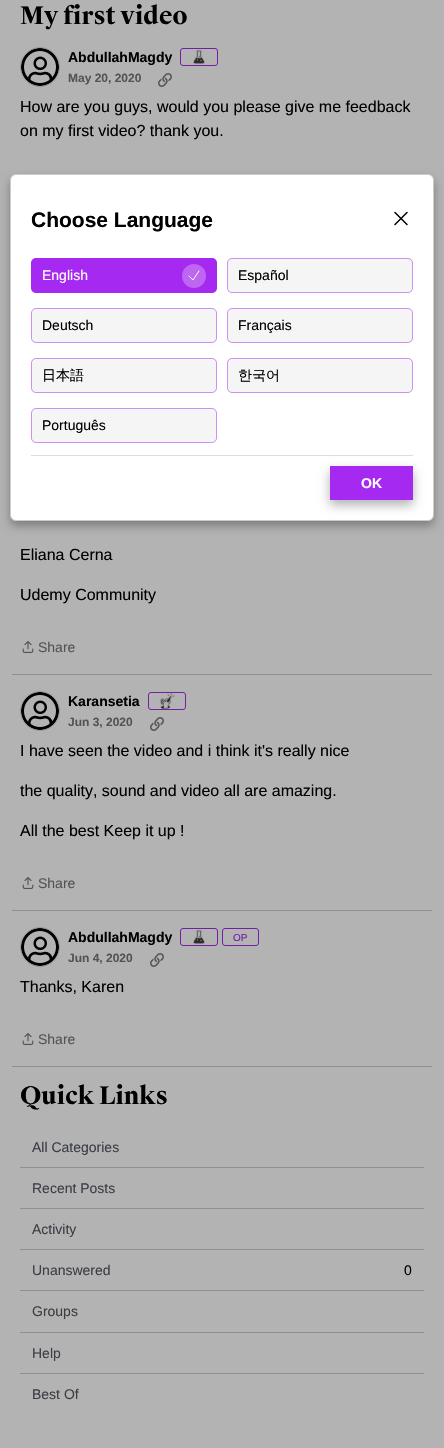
#include "include/core/SkBlurTypes.h"
#include "include/core/SkCanvas.h"
#include "include/core/SkData.h"
#include "include/core/SkFont.h"
#include "include/core/SkFontMgr.h"
#include "include/core/SkImage.h"
#include "include/core/SkMaskFilter.h"
#include "include/core/SkPaint.h"
#include "include/core/SkPathBuilder.h"
#include "include/core/SkTextBlob.h"
#include "include/effects/SkDashPathEffect.h"
#include "include/effects/SkGradientShader.h"
#include "include/utils/SkParsePath.h"

extern sk_sp<SkFontMgr> fontMgr;

void draw(SkCanvas* canvas) {
  SkPaint p;
  p.setAntiAlias(true);
  canvas->clear(SkColorSetRGB(179, 179, 179));
  p.setStyle(SkPaint::kStroke_Style);
  p.setStrokeWidth(1);
  p.setColor(SkColorSetRGB(152, 152, 152));
  canvas->drawCircle(40, 67, 19.5f, p);
  canvas->drawImageRect(SkImages::DeferredFromEncodedData(SkData::MakeFromFileName("images/1.png")), SkRect::MakeLTRB(21, 48, 59, 86), SkSamplingOptions());
  p.setColor(SkColorSetRGB(115, 29, 168));
  canvas->drawRoundRect(SkRect::MakeLTRB(180.5f, 48.5f, 217.5f, 65.5f), 2.5f, 2.5f, p);
  canvas->drawImageRect(SkImages::DeferredFromEncodedData(SkData::MakeFromFileName("images/2.png")), SkRect::MakeLTRB(193, 50, 205, 64), SkSamplingOptions());
  canvas->drawImageRect(SkImages::DeferredFromEncodedData(SkData::MakeFromFileName("images/3.png")), SkRect::MakeLTRB(158, 73, 172, 87), SkSamplingOptions());
  canvas->drawImageRect(SkImages::DeferredFromEncodedData(SkData::MakeFromFileName("images/4.png")), SkRect::MakeLTRB(22, 641, 34, 653), SkSamplingOptions());
  p.setStyle(SkPaint::kFill_Style);
  p.setColor(SkColorSetRGB(143, 143, 143));
  canvas->drawRect(SkRect::MakeLTRB(12, 674, 432, 675), p);
  p.setStyle(SkPaint::kStroke_Style);
  p.setColor(SkColorSetRGB(152, 152, 152));
  canvas->drawCircle(40, 711, 19.5f, p);
  canvas->drawImageRect(SkImages::DeferredFromEncodedData(SkData::MakeFromFileName("images/1.png")), SkRect::MakeLTRB(21, 692, 59, 730), SkSamplingOptions());
  p.setColor(SkColorSetRGB(115, 29, 168));
  canvas->drawRoundRect(SkRect::MakeLTRB(148.5f, 692.5f, 185.5f, 709.5f), 2.5f, 2.5f, p);
  canvas->drawImageRect(SkImages::DeferredFromEncodedData(SkData::MakeFromFileName("images/5.png")), SkRect::MakeLTRB(160, 693, 175, 709), SkSamplingOptions());
  canvas->drawImageRect(SkImages::DeferredFromEncodedData(SkData::MakeFromFileName("images/3.png")), SkRect::MakeLTRB(150, 717, 164, 731), SkSamplingOptions());
  canvas->drawImageRect(SkImages::DeferredFromEncodedData(SkData::MakeFromFileName("images/4.png")), SkRect::MakeLTRB(22, 877, 34, 889), SkSamplingOptions());
  p.setStyle(SkPaint::kFill_Style);
  p.setColor(SkColorSetRGB(143, 143, 143));
  canvas->drawRect(SkRect::MakeLTRB(12, 910, 432, 911), p);
  p.setStyle(SkPaint::kStroke_Style);
  p.setColor(SkColorSetRGB(152, 152, 152));
  canvas->drawCircle(40, 947, 19.5f, p);
  canvas->drawImageRect(SkImages::DeferredFromEncodedData(SkData::MakeFromFileName("images/1.png")), SkRect::MakeLTRB(21, 928, 59, 966), SkSamplingOptions());
  p.setColor(SkColorSetRGB(115, 29, 168));
  canvas->drawRoundRect(SkRect::MakeLTRB(180.5f, 928.5f, 217.5f, 945.5f), 2.5f, 2.5f, p);
  canvas->drawImageRect(SkImages::DeferredFromEncodedData(SkData::MakeFromFileName("images/2.png")), SkRect::MakeLTRB(193, 930, 205, 944), SkSamplingOptions());
  canvas->drawRoundRect(SkRect::MakeLTRB(222.5f, 928.5f, 258.5f, 945.5f), 2.5f, 2.5f, p);
  canvas->drawImageRect(SkImages::DeferredFromEncodedData(SkData::MakeFromFileName("images/3.png")), SkRect::MakeLTRB(150, 953, 164, 967), SkSamplingOptions());
  canvas->drawImageRect(SkImages::DeferredFromEncodedData(SkData::MakeFromFileName("images/4.png")), SkRect::MakeLTRB(22, 1033, 34, 1045), SkSamplingOptions());
  p.setStyle(SkPaint::kFill_Style);
  p.setColor(SkColorSetRGB(143, 143, 143));
  canvas->drawRect(SkRect::MakeLTRB(12, 1066, 432, 1067), p);
  canvas->drawRect(SkRect::MakeLTRB(20, 1167, 424, 1168), p);
  canvas->drawRect(SkRect::MakeLTRB(20, 1208, 424, 1209), p);
  canvas->drawRect(SkRect::MakeLTRB(20, 1249, 424, 1250), p);
  canvas->drawRect(SkRect::MakeLTRB(20, 1290, 424, 1291), p);
  canvas->drawRect(SkRect::MakeLTRB(20, 1332, 424, 1333), p);
  canvas->drawRect(SkRect::MakeLTRB(20, 1373, 424, 1374), p);
  p.setColor(SkColorSetARGB(77, 0, 0, 0));
  p.setMaskFilter(SkMaskFilter::MakeBlur(kNormal_SkBlurStyle, 5));
  canvas->drawRoundRect(SkRect::MakeLTRB(10, 179, 434, 526), 6, 6, p);
  p.setMaskFilter(nullptr);
  p.setColor(SK_ColorWHITE);
  canvas->drawRoundRect(SkRect::MakeLTRB(10.5f, 174.5f, 433.5f, 520.5f), 5.5f, 5.5f, p);
  p.setStyle(SkPaint::kStroke_Style);
  p.setColor(SkColorSetRGB(204, 204, 204));
  canvas->drawRoundRect(SkRect::MakeLTRB(10.5f, 174.5f, 433.5f, 520.5f), 5.5f, 5.5f, p);
  p.setStrokeWidth(1.5f);
  p.setStrokeCap(SkPaint::kRound_Cap);
  p.setStrokeJoin(SkPaint::kRound_Join);
  p.setColor(SK_ColorBLACK);
  canvas->drawPath(SkPathBuilder().moveTo(395, 224.5f).lineTo(407, 212.5f).moveTo(395, 212.5f).lineTo(407, 224.5f).detach(), p);
  p.setStyle(SkPaint::kFill_Style);
  p.setColor(SkColorSetRGB(165, 41, 240));
  canvas->drawRoundRect(SkRect::MakeLTRB(31, 258, 217, 293), 5, 5, p);
  p.setStyle(SkPaint::kStroke_Style);
  p.setStrokeWidth(1);
  p.setStrokeCap(SkPaint::kButt_Cap);
  p.setStrokeJoin(SkPaint::kMiter_Join);
  p.setColor(SkColorSetARGB(128, 165, 41, 240));
  canvas->drawRoundRect(SkRect::MakeLTRB(31.5f, 258.5f, 216.5f, 292.5f), 4.5f, 4.5f, p);
  p.setStyle(SkPaint::kFill_Style);
  p.setColor(SkColorSetRGB(188, 102, 241));
  canvas->drawCircle(194, 276, 12, p);
  p.setStyle(SkPaint::kStroke_Style);
  p.setStrokeCap(SkPaint::kRound_Cap);
  p.setStrokeJoin(SkPaint::kRound_Join);
  p.setColor(SK_ColorWHITE);
  canvas->drawPath(SkPathBuilder().moveTo(189, 276).lineTo(193, 280).lineTo(199, 271).detach(), p);
  p.setStyle(SkPaint::kFill_Style);
  p.setColor(SkColorSetRGB(245, 245, 246));
  canvas->drawRoundRect(SkRect::MakeLTRB(227, 258, 413, 293), 5, 5, p);
  p.setStyle(SkPaint::kStroke_Style);
  p.setStrokeCap(SkPaint::kButt_Cap);
  p.setStrokeJoin(SkPaint::kMiter_Join);
  p.setColor(SkColorSetARGB(128, 165, 41, 240));
  canvas->drawRoundRect(SkRect::MakeLTRB(227.5f, 258.5f, 412.5f, 292.5f), 4.5f, 4.5f, p);
  p.setStyle(SkPaint::kFill_Style);
  p.setColor(SkColorSetRGB(245, 245, 246));
  canvas->drawRoundRect(SkRect::MakeLTRB(31, 308, 217, 343), 5, 5, p);
  p.setStyle(SkPaint::kStroke_Style);
  p.setColor(SkColorSetARGB(128, 165, 41, 240));
  canvas->drawRoundRect(SkRect::MakeLTRB(31.5f, 308.5f, 216.5f, 342.5f), 4.5f, 4.5f, p);
  p.setStyle(SkPaint::kFill_Style);
  p.setColor(SkColorSetRGB(245, 245, 246));
  canvas->drawRoundRect(SkRect::MakeLTRB(227, 308, 413, 343), 5, 5, p);
  p.setStyle(SkPaint::kStroke_Style);
  p.setColor(SkColorSetARGB(128, 165, 41, 240));
  canvas->drawRoundRect(SkRect::MakeLTRB(227.5f, 308.5f, 412.5f, 342.5f), 4.5f, 4.5f, p);
  p.setStyle(SkPaint::kFill_Style);
  p.setColor(SkColorSetRGB(245, 245, 246));
  canvas->drawRoundRect(SkRect::MakeLTRB(31, 358, 217, 393), 5, 5, p);
  p.setStyle(SkPaint::kStroke_Style);
  p.setColor(SkColorSetARGB(128, 165, 41, 240));
  canvas->drawRoundRect(SkRect::MakeLTRB(31.5f, 358.5f, 216.5f, 392.5f), 4.5f, 4.5f, p);
  p.setStyle(SkPaint::kFill_Style);
  p.setColor(SkColorSetRGB(245, 245, 246));
  canvas->drawRoundRect(SkRect::MakeLTRB(227, 358, 413, 393), 5, 5, p);
  p.setStyle(SkPaint::kStroke_Style);
  p.setColor(SkColorSetARGB(128, 165, 41, 240));
  canvas->drawRoundRect(SkRect::MakeLTRB(227.5f, 358.5f, 412.5f, 392.5f), 4.5f, 4.5f, p);
  p.setStyle(SkPaint::kFill_Style);
  p.setColor(SkColorSetRGB(245, 245, 246));
  canvas->drawRoundRect(SkRect::MakeLTRB(31, 408, 217, 443), 5, 5, p);
  p.setStyle(SkPaint::kStroke_Style);
  p.setColor(SkColorSetARGB(128, 165, 41, 240));
  canvas->drawRoundRect(SkRect::MakeLTRB(31.5f, 408.5f, 216.5f, 442.5f), 4.5f, 4.5f, p);
  p.setStyle(SkPaint::kFill_Style);
  p.setColor(SkColorSetRGB(221, 221, 221));
  canvas->drawRect(SkRect::MakeLTRB(31, 455, 413, 456), p);
  p.setColor(SkColorSetARGB(77, 0, 0, 0));
  p.setMaskFilter(SkMaskFilter::MakeBlur(kNormal_SkBlurStyle, 5));
  canvas->drawRect(SkRect::MakeLTRB(330, 471, 413, 505), p);
  p.setMaskFilter(nullptr);
  p.setColor(SkColorSetRGB(165, 41, 240));
  canvas->drawRect(SkRect::MakeLTRB(330, 466, 413, 500), p);
  SkFont font1(fontMgr->matchFamilyStyle("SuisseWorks", SkFontStyle::Bold()), 24);
  font1.setSubpixel(true);
  p.setColor(SK_ColorBLACK);
  canvas->drawString("My first video", 20, 24, font1, p);
  SkFont font2(fontMgr->matchFamilyStyle("Liberation Sans", SkFontStyle::Bold()), 14);
  font2.setSubpixel(true);
  canvas->drawString("AbdullahMagdy", 68, 62, font2, p);
  SkFont font3(fontMgr->matchFamilyStyle("Liberation Sans", SkFontStyle::Bold()), 12);
  font3.setSubpixel(true);
  p.setColor(SkColorSetRGB(83, 83, 83));
  canvas->drawString("May 20, 2020", 68, 82, font3, p);
  SkFont font4(fontMgr->matchFamilyStyle("Liberation Sans", SkFontStyle::Normal()), 16);
  font4.setSubpixel(true);
  p.setColor(SK_ColorBLACK);
  canvas->drawString("How are you guys, would you please give me feedback", 20, 112, font4, p);
  canvas->drawString("on my first video? thank you.", 20, 136, font4, p);
  canvas->drawString("Eliana Cerna", 20, 560, font4, p);
  canvas->drawString("Udemy Community", 20, 600, font4, p);
  SkFont font5(fontMgr->matchFamilyStyle("Liberation Sans", SkFontStyle::Normal()), 14);
  font5.setSubpixel(true);
  p.setColor(SkColorSetRGB(83, 83, 83));
  canvas->drawString("Share", 38, 652, font5, p);
  p.setColor(SK_ColorBLACK);
  canvas->drawString("Karansetia", 68, 706, font2, p);
  p.setColor(SkColorSetRGB(83, 83, 83));
  canvas->drawString("Jun 3, 2020", 68, 726, font3, p);
  p.setColor(SK_ColorBLACK);
  canvas->drawString("I have seen the video and i think it's really nice", 20, 756, font4, p);
  canvas->drawString("the quality, sound and video all are amazing.", 20, 796, font4, p);
  canvas->drawString("All the best Keep it up !", 20, 836, font4, p);
  p.setColor(SkColorSetRGB(83, 83, 83));
  canvas->drawString("Share", 38, 888, font5, p);
  p.setColor(SK_ColorBLACK);
  canvas->drawString("AbdullahMagdy", 68, 942, font2, p);
  SkFont font6(fontMgr->matchFamilyStyle("Liberation Sans", SkFontStyle::Normal()), 10);
  font6.setSubpixel(true);
  p.setColor(SkColorSetRGB(115, 29, 168));
  canvas->drawString("OP", 233, 941, font6, p);
  p.setColor(SkColorSetRGB(83, 83, 83));
  canvas->drawString("Jun 4, 2020", 68, 962, font3, p);
  p.setColor(SK_ColorBLACK);
  canvas->drawString("Thanks, Karen", 20, 992, font4, p);
  p.setColor(SkColorSetRGB(83, 83, 83));
  canvas->drawString("Share", 38, 1044, font5, p);
  p.setColor(SK_ColorBLACK);
  canvas->drawString("Quick Links", 20, 1104, font1, p);
  p.setColor(SkColorSetRGB(59, 63, 69));
  canvas->drawString("All Categories", 32, 1152, font5, p);
  canvas->drawString("Recent Posts", 32, 1193, font5, p);
  canvas->drawString("Activity", 32, 1234, font5, p);
  canvas->drawString("Unanswered", 32, 1275, font5, p);
  p.setColor(SK_ColorBLACK);
  canvas->drawString("0", 404, 1275, font5, p);
  p.setColor(SkColorSetRGB(59, 63, 69));
  canvas->drawString("Groups", 32, 1316, font5, p);
  canvas->drawString("Help", 32, 1358, font5, p);
  canvas->drawString("Best Of", 32, 1399, font5, p);
  SkFont font7(fontMgr->matchFamilyStyle("Liberation Sans", SkFontStyle::Bold()), 21);
  font7.setSubpixel(true);
  p.setColor(SK_ColorBLACK);
  canvas->drawString("Choose Language", 31, 227, font7, p);
  p.setColor(SK_ColorWHITE);
  canvas->drawString("English", 42, 280, font5, p);
  p.setColor(SK_ColorBLACK);
  canvas->drawString("Español", 238, 280, font5, p);
  canvas->drawString("Deutsch", 42, 330, font5, p);
  canvas->drawString("Français", 238, 330, font5, p);
  SkFont font8(fontMgr->matchFamilyStyle("WenQuanYi Zen Hei", SkFontStyle(500, SkFontStyle::kNormal_Width, SkFontStyle::kUpright_Slant)), 14);
  font8.setSubpixel(true);
  canvas->drawString("日本語", 42, 380, font8, p);
  canvas->drawString("한국어", 238, 380, font8, p);
  canvas->drawString("Português", 42, 430, font5, p);
  p.setColor(SK_ColorWHITE);
  canvas->drawString("OK", 361, 488, font2, p);
}
